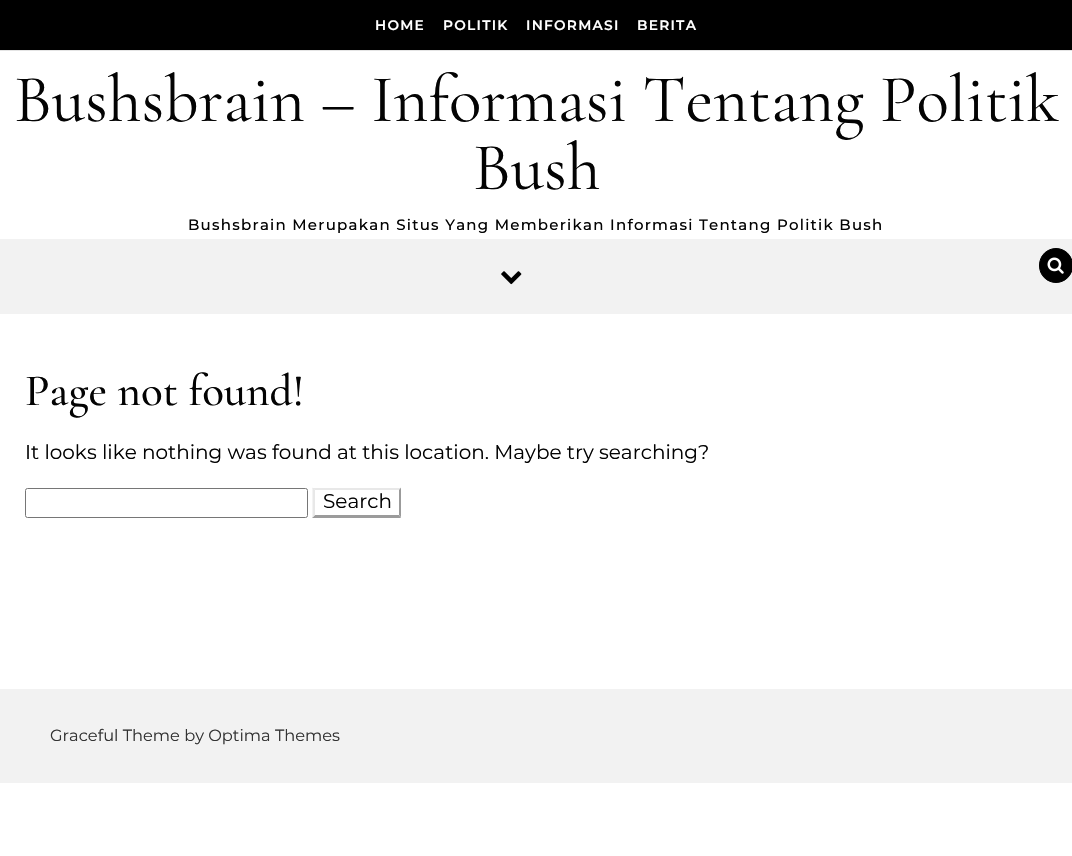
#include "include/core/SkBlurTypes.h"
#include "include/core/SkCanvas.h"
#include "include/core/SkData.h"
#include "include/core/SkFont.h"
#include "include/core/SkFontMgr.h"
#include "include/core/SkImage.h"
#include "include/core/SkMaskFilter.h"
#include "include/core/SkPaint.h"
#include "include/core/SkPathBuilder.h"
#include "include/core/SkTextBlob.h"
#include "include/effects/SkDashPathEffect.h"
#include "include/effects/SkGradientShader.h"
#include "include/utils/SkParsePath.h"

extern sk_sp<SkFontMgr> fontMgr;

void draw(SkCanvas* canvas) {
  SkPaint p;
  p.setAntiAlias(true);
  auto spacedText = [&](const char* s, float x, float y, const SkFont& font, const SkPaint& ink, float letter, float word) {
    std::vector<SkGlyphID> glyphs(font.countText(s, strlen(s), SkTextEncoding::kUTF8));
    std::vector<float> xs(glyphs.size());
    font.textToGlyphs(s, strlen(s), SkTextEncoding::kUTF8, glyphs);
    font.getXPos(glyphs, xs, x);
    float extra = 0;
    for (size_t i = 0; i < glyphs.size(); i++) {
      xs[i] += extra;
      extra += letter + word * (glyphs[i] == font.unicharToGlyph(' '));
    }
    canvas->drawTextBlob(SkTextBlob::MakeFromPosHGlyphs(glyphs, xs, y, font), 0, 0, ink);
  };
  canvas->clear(SK_ColorWHITE);
  p.setColor(SK_ColorBLACK);
  canvas->drawRect(SkRect::MakeLTRB(0, 0, 1072, 50), p);
  p.setColor(SkColorSetRGB(228, 228, 228));
  canvas->drawRect(SkRect::MakeLTRB(0, 50, 1072, 51), p);
  p.setColor(SkColorSetRGB(242, 242, 242));
  canvas->drawRect(SkRect::MakeLTRB(0, 239, 1072, 314), p);
  canvas->drawImageRect(SkImages::DeferredFromEncodedData(SkData::MakeFromFileName("images/1.png")), SkRect::MakeLTRB(501, 271, 522, 285), SkSamplingOptions());
  p.setColor(SK_ColorBLACK);
  canvas->drawRoundRect(SkRect::MakeLTRB(1039.5f, 248.5f, 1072.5f, 282.5f), 16.5f, 16.5f, p);
  p.setStyle(SkPaint::kStroke_Style);
  p.setStrokeWidth(1);
  canvas->drawRoundRect(SkRect::MakeLTRB(1039.5f, 248.5f, 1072.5f, 282.5f), 16.5f, 16.5f, p);
  canvas->drawImageRect(SkImages::DeferredFromEncodedData(SkData::MakeFromFileName("images/2.png")), SkRect::MakeLTRB(1047, 257, 1064, 274), SkSamplingOptions());
  p.setColor(SkColorSetRGB(118, 118, 118));
  canvas->drawRoundRect(SkRect::MakeLTRB(25.5f, 488.5f, 307.5f, 517.5f), 2, 2, p);
  p.setStyle(SkPaint::kFill_Style);
  p.setColor(SkColorSetRGB(232, 232, 232));
  canvas->drawPath(SkPathBuilder().moveTo(312, 488).lineTo(401, 488).lineTo(399, 490).lineTo(315, 490).close().detach(), p);
  p.setColor(SkColorSetRGB(155, 155, 155));
  canvas->drawPath(SkPathBuilder().moveTo(401, 487.5f).lineTo(401, 517.5f).lineTo(399, 515).lineTo(399, 490).close().detach(), p);
  canvas->drawPath(SkPathBuilder().moveTo(401, 518).lineTo(312, 518).lineTo(315, 515).lineTo(399, 515).close().detach(), p);
  p.setColor(SkColorSetRGB(232, 232, 232));
  canvas->drawPath(SkPathBuilder().moveTo(312.5f, 517.5f).lineTo(312.5f, 487.5f).lineTo(315, 490).lineTo(315, 515).close().detach(), p);
  p.setColor(SkColorSetRGB(242, 242, 242));
  canvas->drawRect(SkRect::MakeLTRB(0, 689, 1072, 783), p);
  SkFont font1(fontMgr->matchFamilyStyle("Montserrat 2", SkFontStyle(100, SkFontStyle::kNormal_Width, SkFontStyle::kUpright_Slant)), 13.75f);
  font1.setSubpixel(true);
  p.setColor(SK_ColorWHITE);
  spacedText("HOME", 375, 30, font1, p, 1.25f, 0);
  spacedText("POLITIK", 443, 30, font1, p, 1.25f, 0);
  spacedText("INFORMASI", 526, 30, font1, p, 1.25f, 0);
  spacedText("BERITA", 637, 30, font1, p, 1.25f, 0);
  SkFont font2(fontMgr->matchFamilyStyle("Cormorant Garamond", SkFontStyle::Normal()), 67.5f);
  font2.setSubpixel(true);
  p.setColor(SkColorSetRGB(3, 3, 3));
  canvas->drawString("Bushsbrain – Informasi Tentang Politik", 14, 121, font2, p);
  canvas->drawString("Bush", 473, 189, font2, p);
  SkFont font3(fontMgr->matchFamilyStyle("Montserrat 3", SkFontStyle(100, SkFontStyle::kNormal_Width, SkFontStyle::kUpright_Slant)), 15);
  font3.setSubpixel(true);
  spacedText("Bushsbrain Merupakan Situs Yang Memberikan Informasi Tentang Politik Bush", 188, 230, font3, p, 1.25f, 0);
  SkFont font4(fontMgr->matchFamilyStyle("Cormorant Garamond", SkFontStyle(500, SkFontStyle::kNormal_Width, SkFontStyle::kUpright_Slant)), 45);
  font4.setSubpixel(true);
  canvas->drawString("Page not found!", 25, 405, font4, p);
  SkFont font5(fontMgr->matchFamilyStyle("Montserrat", SkFontStyle(100, SkFontStyle::kNormal_Width, SkFontStyle::kUpright_Slant)), 20);
  font5.setSubpixel(true);
  canvas->drawString("It looks like nothing was found at this location. Maybe try searching?", 25, 459, font5, p);
  canvas->drawString("Search", 323, 508, font5, p);
  SkFont font6(fontMgr->matchFamilyStyle("Montserrat", SkFontStyle(100, SkFontStyle::kNormal_Width, SkFontStyle::kUpright_Slant)), 16.25f);
  font6.setSubpixel(true);
  p.setColor(SkColorSetRGB(51, 51, 51));
  canvas->drawString("Graceful Theme by Optima Themes", 50, 741, font6, p);
}
